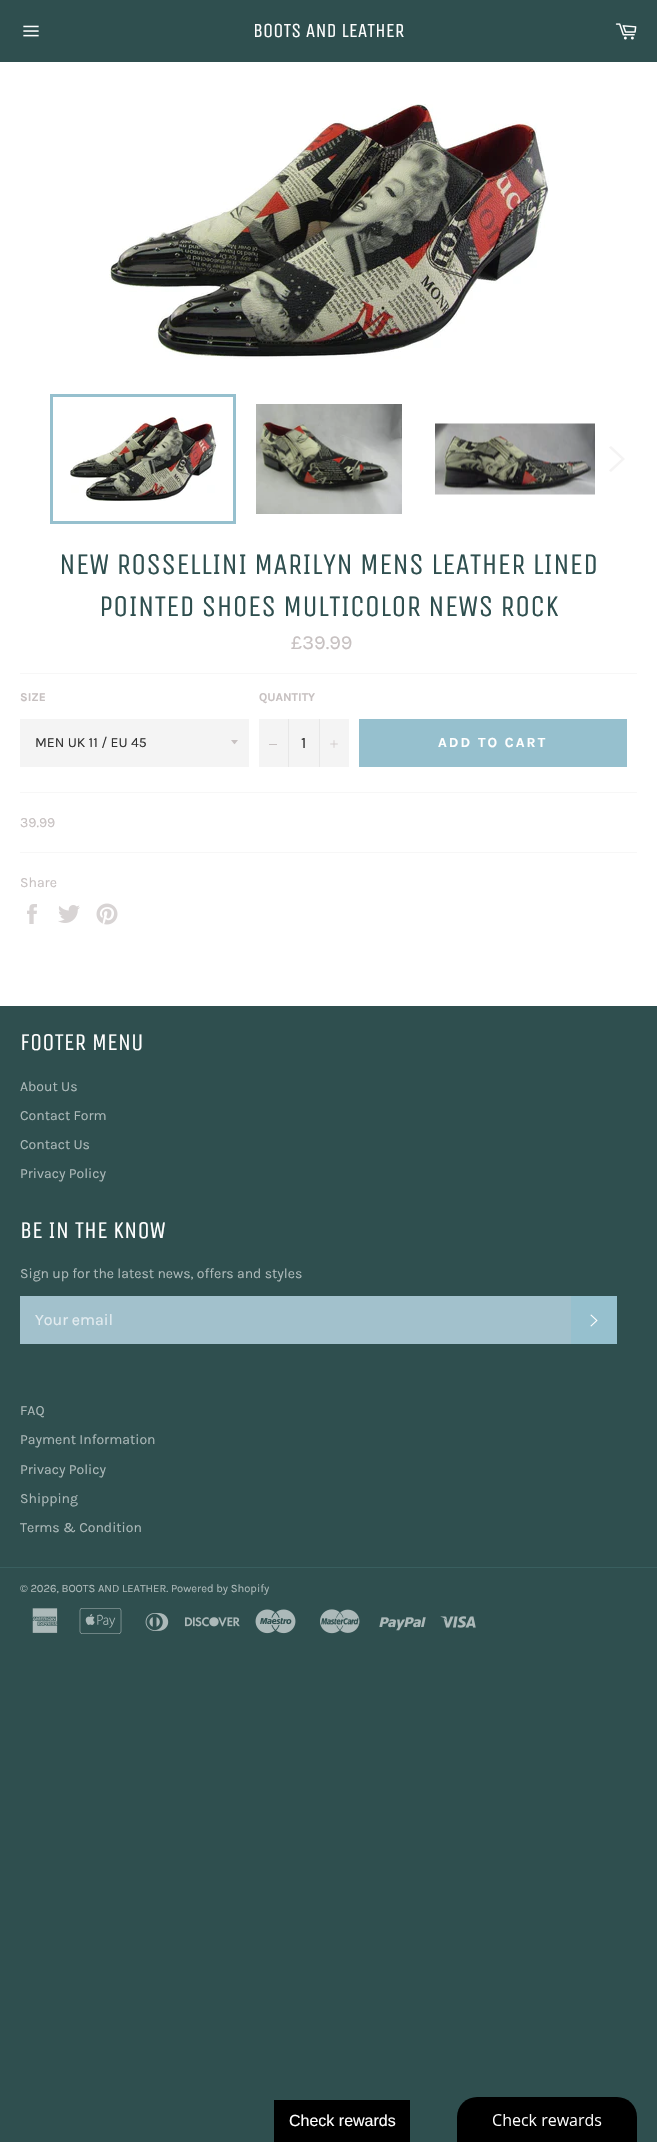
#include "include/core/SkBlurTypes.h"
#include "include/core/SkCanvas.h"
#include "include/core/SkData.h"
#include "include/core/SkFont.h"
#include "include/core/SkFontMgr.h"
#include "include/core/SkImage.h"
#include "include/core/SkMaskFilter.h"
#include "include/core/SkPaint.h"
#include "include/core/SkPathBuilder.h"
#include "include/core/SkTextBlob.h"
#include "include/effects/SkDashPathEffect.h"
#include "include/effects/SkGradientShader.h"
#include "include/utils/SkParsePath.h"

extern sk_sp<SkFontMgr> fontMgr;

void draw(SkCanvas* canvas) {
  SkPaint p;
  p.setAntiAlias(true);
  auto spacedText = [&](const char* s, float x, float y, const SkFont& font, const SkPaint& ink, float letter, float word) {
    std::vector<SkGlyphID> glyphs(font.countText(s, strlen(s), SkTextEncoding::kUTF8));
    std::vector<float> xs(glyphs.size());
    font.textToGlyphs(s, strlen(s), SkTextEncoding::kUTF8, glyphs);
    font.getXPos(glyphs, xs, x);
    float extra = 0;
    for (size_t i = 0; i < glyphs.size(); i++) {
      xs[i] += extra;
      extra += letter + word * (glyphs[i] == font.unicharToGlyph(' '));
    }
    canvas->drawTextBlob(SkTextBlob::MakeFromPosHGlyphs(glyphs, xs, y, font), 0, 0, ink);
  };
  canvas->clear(SkColorSetRGB(47, 79, 79));
  canvas->drawImageRect(SkImages::DeferredFromEncodedData(SkData::MakeFromFileName("images/1.png")), SkRect::MakeLTRB(23, 25, 39, 37), SkSamplingOptions());
  canvas->drawImageRect(SkImages::DeferredFromEncodedData(SkData::MakeFromFileName("images/2.png")), SkRect::MakeLTRB(615, 23, 637, 40), SkSamplingOptions());
  p.setColor(SK_ColorWHITE);
  canvas->drawRect(SkRect::MakeLTRB(0, 62, 657, 1006), p);
  canvas->drawImageRect(SkImages::DeferredFromEncodedData(SkData::MakeFromFileName("images/3.png")), SkRect::MakeLTRB(109, 104, 549, 359), SkSamplingOptions());
  canvas->drawImageRect(SkImages::DeferredFromEncodedData(SkData::MakeFromFileName("images/4.png")), SkRect::MakeLTRB(70, 416, 218, 501), SkSamplingOptions());
  p.setStyle(SkPaint::kStroke_Style);
  p.setStrokeWidth(3);
  p.setColor(SkColorSetRGB(150, 192, 206));
  canvas->drawRect(SkRect::MakeLTRB(51.5f, 395.5f, 234.5f, 522.5f), p);
  canvas->drawImageRect(SkImages::DeferredFromEncodedData(SkData::MakeFromFileName("images/5.png")), SkRect::MakeLTRB(256, 404, 402, 514), SkSamplingOptions());
  canvas->drawImageRect(SkImages::DeferredFromEncodedData(SkData::MakeFromFileName("images/6.png")), SkRect::MakeLTRB(435, 423, 595, 495), SkSamplingOptions());
  p.setStyle(SkPaint::kFill_Style);
  p.setColor(SkColorSetRGB(244, 243, 243));
  canvas->drawPath(SkPathBuilder().moveTo(609, 447.5f).lineTo(611, 446).lineTo(625, 459).lineTo(611, 472).lineTo(609, 470.5f).lineTo(621.5f, 459).close().detach(), p);
  p.setColor(SkColorSetRGB(247, 247, 247));
  canvas->drawRect(SkRect::MakeLTRB(20, 673, 637, 674), p);
  p.setColor(SkColorSetRGB(244, 244, 244));
  canvas->drawRect(SkRect::MakeLTRB(20, 719, 249, 767), p);
  p.setColor(SkColorSetRGB(199, 193, 193));
  canvas->drawPath(SkPathBuilder().moveTo(231, 740).cubicTo(235.5f, 745.5f, 233.5f, 745.5f, 238, 740).close().detach(), p);
  p.setColor(SkColorSetRGB(244, 244, 244));
  canvas->drawRect(SkRect::MakeLTRB(259, 719, 349, 767), p);
  p.setColor(SkColorSetRGB(231, 231, 231));
  canvas->drawRect(SkRect::MakeLTRB(288, 719, 289, 767), p);
  p.setColor(SkColorSetRGB(199, 193, 193));
  canvas->drawRect(SkRect::MakeLTRB(269, 744, 277, 745), p);
  p.setColor(SkColorSetRGB(231, 231, 231));
  canvas->drawRect(SkRect::MakeLTRB(319, 719, 320, 767), p);
  canvas->drawImageRect(SkImages::DeferredFromEncodedData(SkData::MakeFromFileName("images/7.png")), SkRect::MakeLTRB(330, 740, 338, 748), SkSamplingOptions());
  p.setColor(SkColorSetRGB(150, 192, 206));
  canvas->drawRect(SkRect::MakeLTRB(359, 719, 627, 767), p);
  p.setColor(SkColorSetRGB(247, 247, 247));
  canvas->drawRect(SkRect::MakeLTRB(20, 792, 637, 793), p);
  canvas->drawRect(SkRect::MakeLTRB(20, 852, 637, 853), p);
  canvas->drawImageRect(SkImages::DeferredFromEncodedData(SkData::MakeFromFileName("images/8.png")), SkRect::MakeLTRB(27, 904, 37, 924), SkSamplingOptions());
  canvas->drawImageRect(SkImages::DeferredFromEncodedData(SkData::MakeFromFileName("images/9.png")), SkRect::MakeLTRB(58, 905, 80, 923), SkSamplingOptions());
  canvas->drawImageRect(SkImages::DeferredFromEncodedData(SkData::MakeFromFileName("images/10.png")), SkRect::MakeLTRB(96, 903, 118, 925), SkSamplingOptions());
  p.setColor(SkColorSetRGB(162, 193, 204));
  canvas->drawRect(SkRect::MakeLTRB(20, 1296, 571, 1344), p);
  p.setColor(SkColorSetRGB(150, 192, 206));
  canvas->drawRect(SkRect::MakeLTRB(571, 1296, 617, 1344), p);
  canvas->drawImageRect(SkImages::DeferredFromEncodedData(SkData::MakeFromFileName("images/11.png")), SkRect::MakeLTRB(590, 1314, 598, 1327), SkSamplingOptions());
  p.setColor(SkColorSetRGB(57, 95, 95));
  canvas->drawRect(SkRect::MakeLTRB(0, 1567, 657, 1568), p);
  canvas->drawImageRect(SkImages::DeferredFromEncodedData(SkData::MakeFromFileName("images/12.png")), SkRect::MakeLTRB(32, 1608, 58, 1633), SkSamplingOptions());
  canvas->drawImageRect(SkImages::DeferredFromEncodedData(SkData::MakeFromFileName("images/13.png")), SkRect::MakeLTRB(79, 1608, 122, 1634), SkSamplingOptions());
  canvas->drawImageRect(SkImages::DeferredFromEncodedData(SkData::MakeFromFileName("images/14.png")), SkRect::MakeLTRB(145, 1613, 169, 1631), SkSamplingOptions());
  canvas->drawImageRect(SkImages::DeferredFromEncodedData(SkData::MakeFromFileName("images/15.png")), SkRect::MakeLTRB(185, 1617, 240, 1627), SkSamplingOptions());
  canvas->drawImageRect(SkImages::DeferredFromEncodedData(SkData::MakeFromFileName("images/16.png")), SkRect::MakeLTRB(255, 1609, 296, 1634), SkSamplingOptions());
  canvas->drawImageRect(SkImages::DeferredFromEncodedData(SkData::MakeFromFileName("images/17.png")), SkRect::MakeLTRB(320, 1609, 360, 1634), SkSamplingOptions());
  canvas->drawImageRect(SkImages::DeferredFromEncodedData(SkData::MakeFromFileName("images/18.png")), SkRect::MakeLTRB(379, 1617, 426, 1631), SkSamplingOptions());
  canvas->drawImageRect(SkImages::DeferredFromEncodedData(SkData::MakeFromFileName("images/19.png")), SkRect::MakeLTRB(440, 1616, 476, 1628), SkSamplingOptions());
  p.setColor(SK_ColorBLACK);
  canvas->drawRect(SkRect::MakeLTRB(274, 2100, 410, 2142), p);
  canvas->drawImageRect(SkImages::DeferredFromEncodedData(SkData::MakeFromFileName("images/20.png")), SkRect::MakeLTRB(457, 2097, 637, 2142), SkSamplingOptions());
  SkFont font1(fontMgr->matchFamilyStyle("Unica One", SkFontStyle::Normal()), 20);
  font1.setSubpixel(true);
  p.setColor(SK_ColorWHITE);
  canvas->drawString("BOOTS AND LEATHER", 253, 37, font1, p);
  SkFont font2(fontMgr->matchFamilyStyle("Unica One", SkFontStyle::Normal()), 30);
  font2.setSubpixel(true);
  p.setColor(SkColorSetRGB(47, 79, 79));
  canvas->drawString("NEW ROSSELLINI MARILYN MENS LEATHER LINED", 59, 574, font2, p);
  canvas->drawString("POINTED SHOES MULTICOLOR NEWS ROCK", 99, 616, font2, p);
  SkFont font3(fontMgr->matchFamilyStyle("Karla", SkFontStyle::Normal()), 20);
  font3.setSubpixel(true);
  p.setColor(SkColorSetRGB(199, 193, 193));
  canvas->drawString("£39.99", 291, 649, font3, p);
  SkFont font4(fontMgr->matchFamilyStyle("Karla", SkFontStyle::Bold()), 12);
  font4.setSubpixel(true);
  canvas->drawString("SIZE", 20, 701, font4, p);
  SkFont font5(fontMgr->matchFamilyStyle("Karla", SkFontStyle::Normal()), 14);
  font5.setSubpixel(true);
  p.setColor(SkColorSetRGB(51, 51, 51));
  canvas->drawString("MEN UK 11 / EU 45", 35, 747, font5, p);
  p.setColor(SkColorSetRGB(199, 193, 193));
  canvas->drawString("QUANTITY", 259, 701, font4, p);
  SkFont font6(fontMgr->matchFamilyStyle("Karla", SkFontStyle::Normal()), 16);
  font6.setSubpixel(true);
  p.setColor(SkColorSetRGB(51, 51, 51));
  canvas->drawString("1", 301, 748, font6, p);
  SkFont font7(fontMgr->matchFamilyStyle("Karla", SkFontStyle::Bold()), 14);
  font7.setSubpixel(true);
  p.setColor(SK_ColorWHITE);
  spacedText("ADD TO CART", 438, 747, font7, p, 2.1f, 0);
  p.setColor(SkColorSetRGB(199, 193, 193));
  canvas->drawString("39.99", 20, 827, font5, p);
  canvas->drawString("Share", 20, 887, font5, p);
  SkFont font8(fontMgr->matchFamilyStyle("Unica One", SkFontStyle::Normal()), 24);
  font8.setSubpixel(true);
  p.setColor(SK_ColorWHITE);
  canvas->drawString("FOOTER MENU", 20, 1050, font8, p);
  p.setColor(SkColorSetRGB(172, 185, 185));
  canvas->drawString("About Us", 20, 1091, font5, p);
  canvas->drawString("Contact Form", 20, 1120, font5, p);
  canvas->drawString("Contact Us", 20, 1149, font5, p);
  canvas->drawString("Privacy Policy", 20, 1178, font5, p);
  p.setColor(SK_ColorWHITE);
  canvas->drawString("BE IN THE KNOW", 20, 1238, font8, p);
  p.setColor(SkColorSetRGB(172, 185, 185));
  canvas->drawString("Sign up for the latest news, offers and styles", 20, 1278, font5, p);
  p.setColor(SkColorSetRGB(227, 236, 240));
  canvas->drawString("Your email", 35, 1325, font6, p);
  p.setColor(SkColorSetRGB(172, 185, 185));
  canvas->drawString("FAQ", 20, 1415, font5, p);
  canvas->drawString("Payment Information", 20, 1444, font5, p);
  canvas->drawString("Privacy Policy", 20, 1474, font5, p);
  canvas->drawString("Shipping", 20, 1503, font5, p);
  canvas->drawString("Terms & Condition", 20, 1532, font5, p);
  SkFont font9(fontMgr->matchFamilyStyle("Karla", SkFontStyle::Normal()), 11.2f);
  font9.setSubpixel(true);
  canvas->drawString("© 2026, BOOTS AND LEATHER. Powered by Shopify", 20, 1592, font9, p);
  SkFont font10(fontMgr->matchFamilyStyle("Liberation Sans", SkFontStyle::Normal()), 16);
  font10.setSubpixel(true);
  p.setColor(SK_ColorWHITE);
  canvas->drawString("Check rewards", 289, 2126, font10, p);
}
